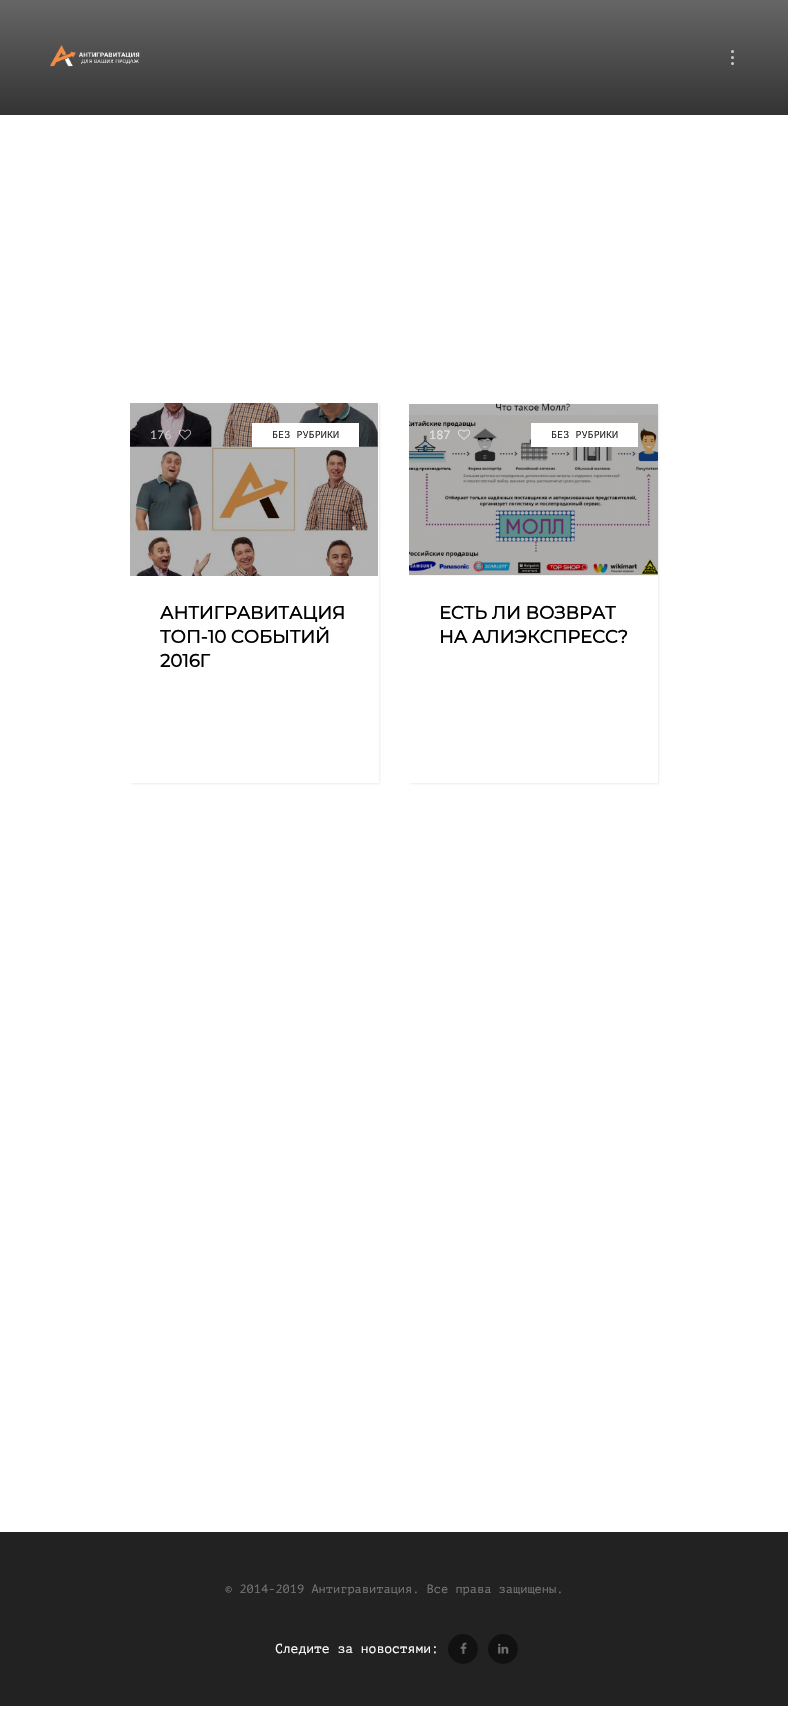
#include "include/core/SkBlurTypes.h"
#include "include/core/SkCanvas.h"
#include "include/core/SkData.h"
#include "include/core/SkFont.h"
#include "include/core/SkFontMgr.h"
#include "include/core/SkImage.h"
#include "include/core/SkMaskFilter.h"
#include "include/core/SkPaint.h"
#include "include/core/SkPathBuilder.h"
#include "include/core/SkTextBlob.h"
#include "include/effects/SkDashPathEffect.h"
#include "include/effects/SkGradientShader.h"
#include "include/utils/SkParsePath.h"

extern sk_sp<SkFontMgr> fontMgr;

void draw(SkCanvas* canvas) {
  SkPaint p;
  p.setAntiAlias(true);
  auto spacedText = [&](const char* s, float x, float y, const SkFont& font, const SkPaint& ink, float letter, float word) {
    std::vector<SkGlyphID> glyphs(font.countText(s, strlen(s), SkTextEncoding::kUTF8));
    std::vector<float> xs(glyphs.size());
    font.textToGlyphs(s, strlen(s), SkTextEncoding::kUTF8, glyphs);
    font.getXPos(glyphs, xs, x);
    float extra = 0;
    for (size_t i = 0; i < glyphs.size(); i++) {
      xs[i] += extra;
      extra += letter + word * (glyphs[i] == font.unicharToGlyph(' '));
    }
    canvas->drawTextBlob(SkTextBlob::MakeFromPosHGlyphs(glyphs, xs, y, font), 0, 0, ink);
  };
  canvas->clear(SK_ColorWHITE);
  {
    const SkColor colors[] = {SkColorSetRGB(102, 102, 102), SkColorSetRGB(51, 51, 51)};
    const float stops[] = {0, 1};
    const SkPoint ends[] = {{394, 0}, {394, 115}};
    p.setShader(SkGradientShader::MakeLinear(ends, colors, stops, 2, SkTileMode::kClamp));
    p.setAlpha(255);
  }
  canvas->drawRect(SkRect::MakeLTRB(0, 0, 788, 115), p);
  canvas->drawImageRect(SkImages::DeferredFromEncodedData(SkData::MakeFromFileName("images/1.png")), SkRect::MakeLTRB(50, 45, 140, 67), SkSamplingOptions());
  p.setShader(nullptr);
  p.setColor(SkColorSetRGB(204, 204, 204));
  canvas->drawCircle(732.5f, 51.5f, 1.5f, p);
  canvas->drawCircle(732.5f, 57.5f, 1.5f, p);
  canvas->drawCircle(732.5f, 63.5f, 1.5f, p);
  canvas->save();
  canvas->clipPath(SkPathBuilder(SkPathFillType::kEvenOdd).moveTo(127, 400).lineTo(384, 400).lineTo(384, 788).lineTo(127, 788).close().moveTo(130, 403).lineTo(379, 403).lineTo(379, 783).lineTo(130, 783).close().detach(), true);
  p.setColor(SkColorSetARGB(20, 13, 15, 19));
  p.setMaskFilter(SkMaskFilter::MakeBlur(kNormal_SkBlurStyle, 1));
  canvas->drawRect(SkRect::MakeLTRB(131, 404, 380, 784), p);
  p.setMaskFilter(nullptr);
  canvas->restore();
  canvas->drawImageRect(SkImages::DeferredFromEncodedData(SkData::MakeFromFileName("images/2.png")), SkRect::MakeLTRB(378, 403, 379, 576), SkSamplingOptions());
  canvas->drawImageRect(SkImages::DeferredFromEncodedData(SkData::MakeFromFileName("images/3.png")), SkRect::MakeLTRB(130, 403, 378, 576), SkSamplingOptions());
  canvas->drawImageRect(SkImages::DeferredFromEncodedData(SkData::MakeFromFileName("images/4.png")), SkRect::MakeLTRB(179, 429, 191, 440), SkSamplingOptions());
  p.setColor(SK_ColorWHITE);
  canvas->drawRect(SkRect::MakeLTRB(252, 423, 359, 447), p);
  canvas->save();
  canvas->clipPath(SkPathBuilder(SkPathFillType::kEvenOdd).moveTo(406, 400).lineTo(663, 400).lineTo(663, 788).lineTo(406, 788).close().moveTo(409, 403).lineTo(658, 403).lineTo(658, 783).lineTo(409, 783).close().detach(), true);
  p.setColor(SkColorSetARGB(20, 13, 15, 19));
  p.setMaskFilter(SkMaskFilter::MakeBlur(kNormal_SkBlurStyle, 1));
  canvas->drawRect(SkRect::MakeLTRB(410, 404, 659, 784), p);
  p.setMaskFilter(nullptr);
  canvas->restore();
  canvas->drawImageRect(SkImages::DeferredFromEncodedData(SkData::MakeFromFileName("images/5.png")), SkRect::MakeLTRB(409, 403, 658, 576), SkSamplingOptions());
  canvas->drawImageRect(SkImages::DeferredFromEncodedData(SkData::MakeFromFileName("images/6.png")), SkRect::MakeLTRB(409, 404, 658, 575), SkSamplingOptions());
  canvas->drawImageRect(SkImages::DeferredFromEncodedData(SkData::MakeFromFileName("images/7.png")), SkRect::MakeLTRB(458, 429, 470, 440), SkSamplingOptions());
  p.setColor(SK_ColorWHITE);
  canvas->drawRect(SkRect::MakeLTRB(531, 423, 638, 447), p);
  p.setColor(SkColorSetRGB(34, 34, 34));
  canvas->drawRect(SkRect::MakeLTRB(0, 1532, 788, 1706), p);
  p.setColor(SkColorSetRGB(17, 17, 17));
  canvas->drawCircle(463, 1649, 15, p);
  canvas->drawImageRect(SkImages::DeferredFromEncodedData(SkData::MakeFromFileName("images/8.png")), SkRect::MakeLTRB(460, 1642, 467, 1654), SkSamplingOptions());
  canvas->drawCircle(503, 1649, 15, p);
  canvas->drawImageRect(SkImages::DeferredFromEncodedData(SkData::MakeFromFileName("images/9.png")), SkRect::MakeLTRB(498, 1643, 509, 1654), SkSamplingOptions());
  SkFont font1(fontMgr->matchFamilyStyle("PT Mono", SkFontStyle::Normal()), 12);
  font1.setSubpixel(true);
  p.setColor(SkColorSetRGB(204, 202, 204));
  canvas->drawString("176", 150, 439, font1, p);
  SkFont font2(fontMgr->matchFamilyStyle("PT Mono", SkFontStyle::Normal()), 10);
  font2.setSubpixel(true);
  p.setColor(SkColorSetRGB(34, 34, 34));
  spacedText("БЕЗ РУБРИКИ", 272, 438, font2, p, 0.1f, 0);
  SkFont font3(fontMgr->matchFamilyStyle("Montserrat", SkFontStyle::Bold()), 18);
  font3.setSubpixel(true);
  p.setColor(SK_ColorBLACK);
  canvas->drawString("АНТИГРАВИТАЦИЯ", 160, 619, font3, p);
  canvas->drawString("ТОП-10 СОБЫТИЙ", 160, 643, font3, p);
  canvas->drawString("2016Г", 160, 667, font3, p);
  p.setColor(SkColorSetRGB(230, 230, 229));
  canvas->drawString("187", 429, 439, font1, p);
  p.setColor(SkColorSetRGB(34, 34, 34));
  spacedText("БЕЗ РУБРИКИ", 551, 438, font2, p, 0.1f, 0);
  p.setColor(SK_ColorBLACK);
  canvas->drawString("ЕСТЬ ЛИ ВОЗВРАТ", 439, 619, font3, p);
  canvas->drawString("НА АЛИЭКСПРЕСС?", 439, 643, font3, p);
  p.setColor(SkColorSetRGB(117, 117, 117));
  canvas->drawString("© 2014-2019 Антигравитация. Все права защищены.", 225, 1593, font1, p);
  SkFont font4(fontMgr->matchFamilyStyle("PT Mono", SkFontStyle::Normal()), 13);
  font4.setSubpixel(true);
  p.setColor(SK_ColorWHITE);
  canvas->drawString("Следите за новостями:", 275, 1653, font4, p);
}
